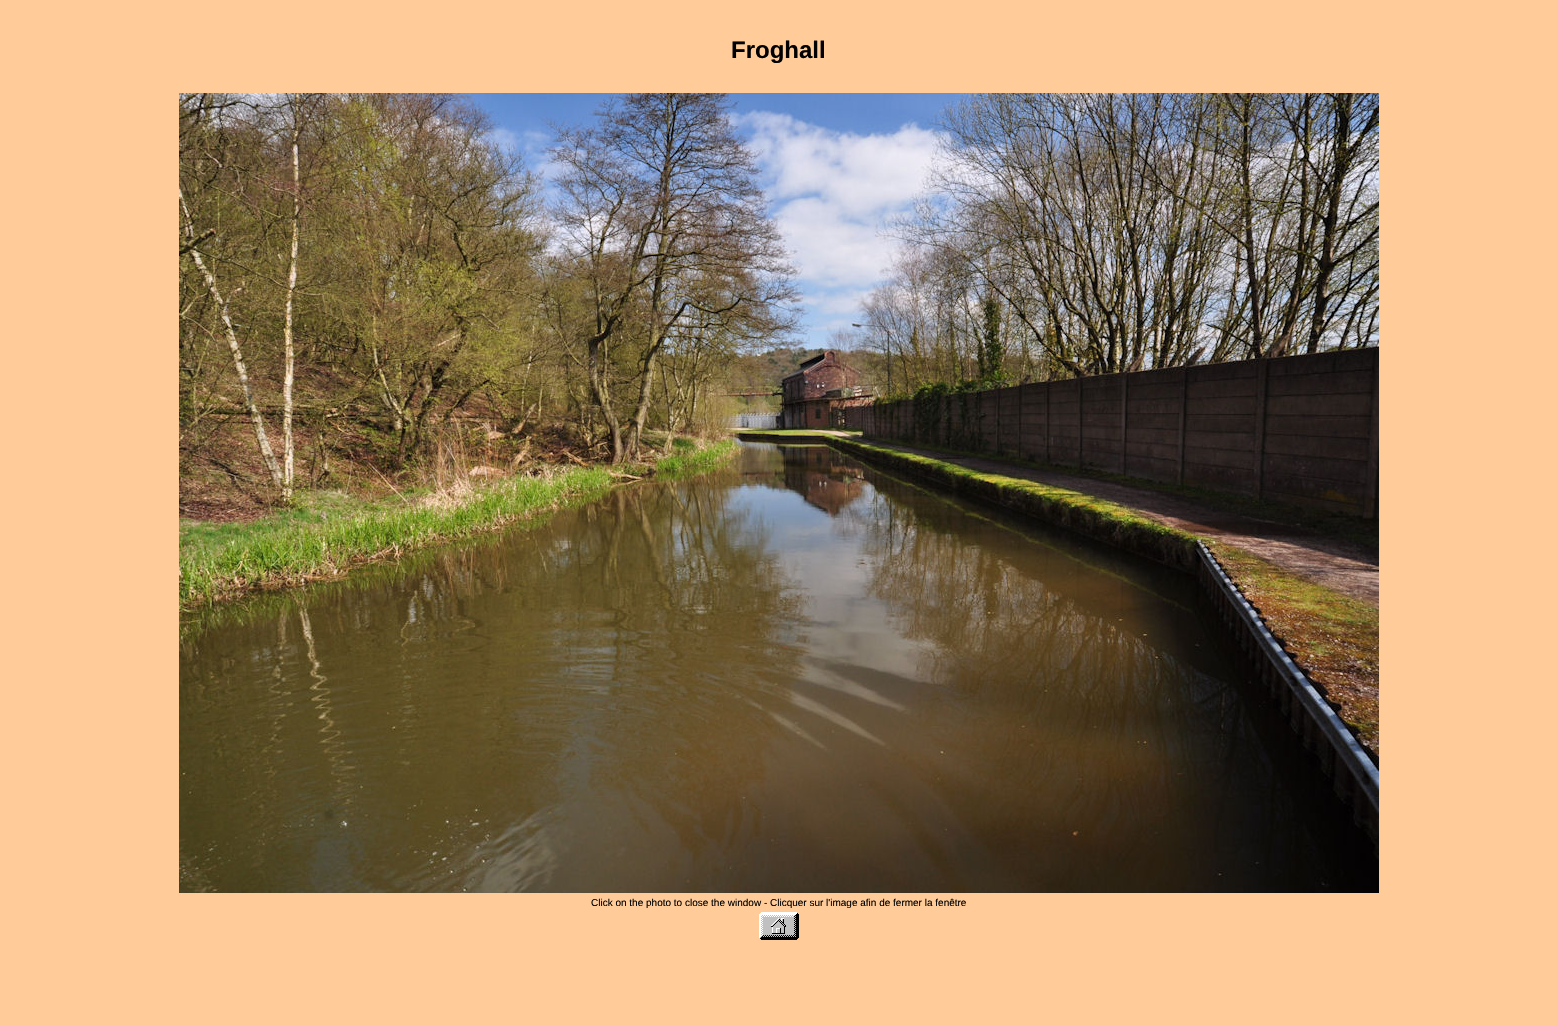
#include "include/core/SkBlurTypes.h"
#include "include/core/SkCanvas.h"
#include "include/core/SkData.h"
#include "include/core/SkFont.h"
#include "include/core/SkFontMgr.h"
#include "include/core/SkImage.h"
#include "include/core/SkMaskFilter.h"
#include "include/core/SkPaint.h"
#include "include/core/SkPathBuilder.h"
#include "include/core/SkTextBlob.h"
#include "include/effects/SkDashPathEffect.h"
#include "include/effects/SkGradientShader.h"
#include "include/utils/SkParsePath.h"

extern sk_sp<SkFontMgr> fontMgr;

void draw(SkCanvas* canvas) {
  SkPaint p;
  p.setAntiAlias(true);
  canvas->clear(SkColorSetRGB(255, 204, 153));
  canvas->drawImageRect(SkImages::DeferredFromEncodedData(SkData::MakeFromFileName("images/1.png")), SkRect::MakeLTRB(179, 93, 1379, 893), SkSamplingOptions());
  canvas->drawImageRect(SkImages::DeferredFromEncodedData(SkData::MakeFromFileName("images/2.png")), SkRect::MakeLTRB(759, 912, 799, 940), SkSamplingOptions());
  SkFont font1(fontMgr->matchFamilyStyle("Liberation Sans", SkFontStyle::Bold()), 24);
  font1.setSubpixel(true);
  p.setColor(SK_ColorBLACK);
  canvas->drawString("Froghall", 731, 58, font1, p);
  SkFont font2(fontMgr->matchFamilyStyle("Liberation Sans", SkFontStyle::Normal()), 10);
  font2.setSubpixel(true);
  canvas->drawString("Click on the photo to close the window - Clicquer sur l'image afin de fermer la fenêtre", 591, 906, font2, p);
}
